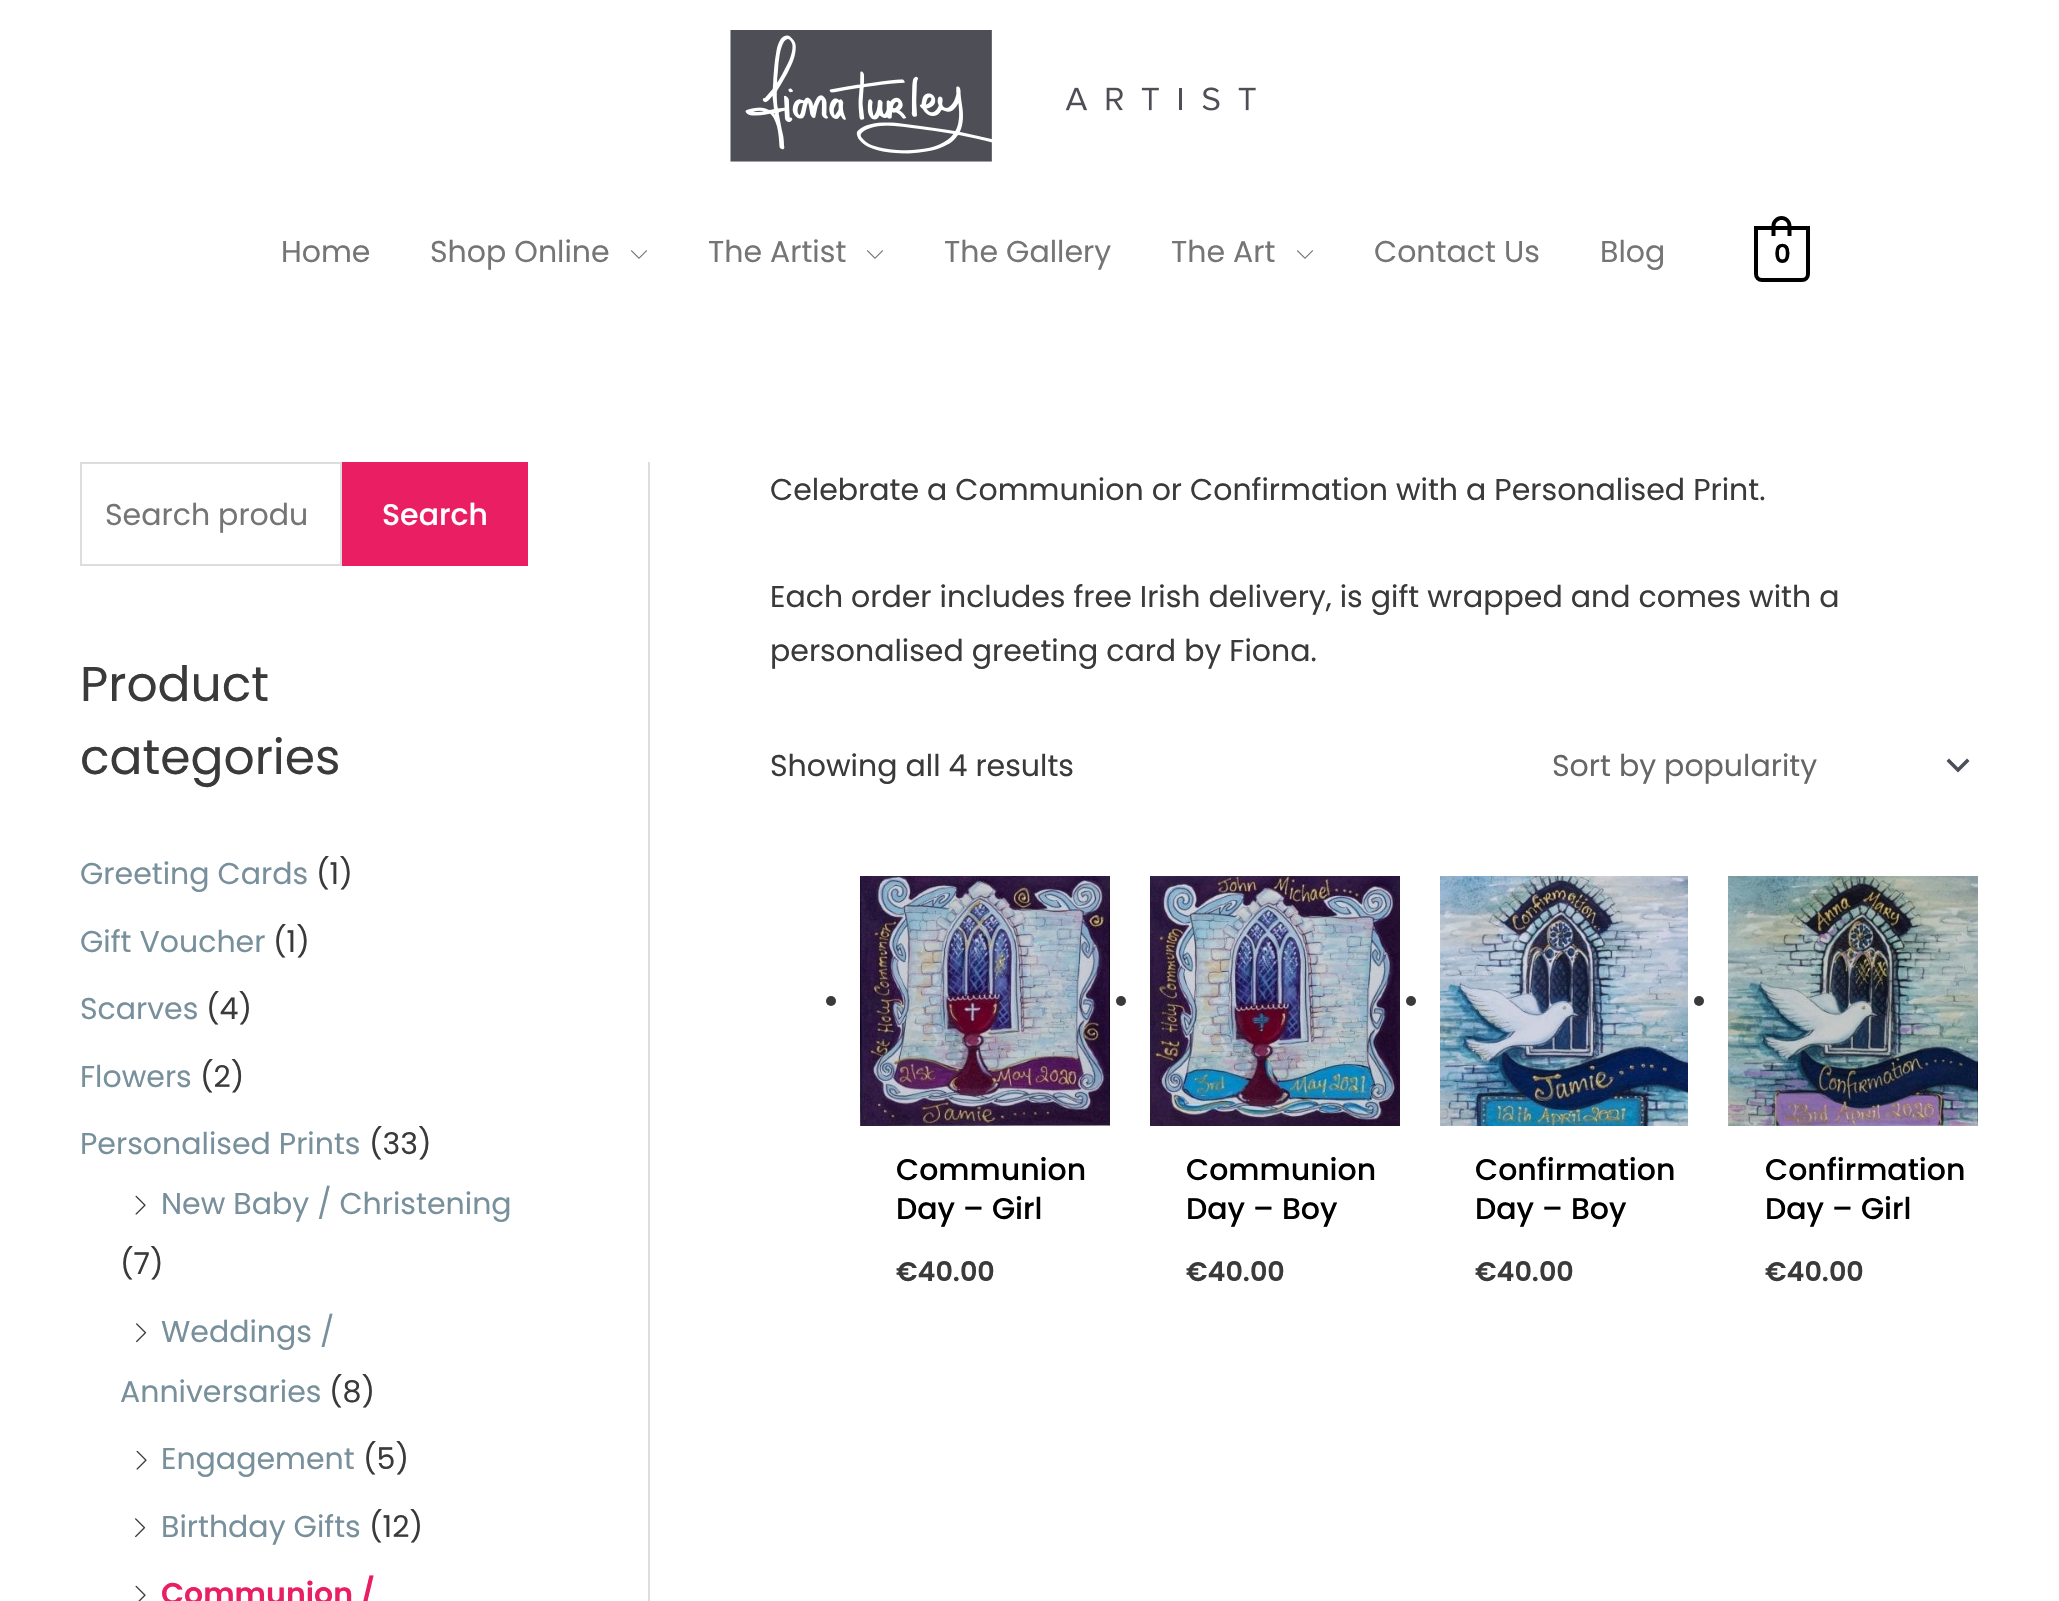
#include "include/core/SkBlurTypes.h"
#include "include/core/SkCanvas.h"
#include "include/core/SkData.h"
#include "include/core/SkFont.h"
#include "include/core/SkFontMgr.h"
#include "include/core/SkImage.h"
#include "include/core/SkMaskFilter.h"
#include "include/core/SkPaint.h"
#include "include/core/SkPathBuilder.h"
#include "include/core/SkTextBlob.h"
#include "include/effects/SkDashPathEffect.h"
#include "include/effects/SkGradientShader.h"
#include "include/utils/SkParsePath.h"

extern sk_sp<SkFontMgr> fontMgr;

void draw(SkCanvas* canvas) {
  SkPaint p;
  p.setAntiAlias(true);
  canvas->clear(SK_ColorWHITE);
  canvas->drawImageRect(SkImages::DeferredFromEncodedData(SkData::MakeFromFileName("images/1.png")), SkRect::MakeLTRB(730, 30, 1256, 162), SkSamplingOptions());
  canvas->drawImageRect(SkImages::DeferredFromEncodedData(SkData::MakeFromFileName("images/2.png")), SkRect::MakeLTRB(631, 250, 647, 259), SkSamplingOptions());
  canvas->drawImageRect(SkImages::DeferredFromEncodedData(SkData::MakeFromFileName("images/2.png")), SkRect::MakeLTRB(867, 250, 883, 259), SkSamplingOptions());
  canvas->drawImageRect(SkImages::DeferredFromEncodedData(SkData::MakeFromFileName("images/2.png")), SkRect::MakeLTRB(1297, 250, 1313, 259), SkSamplingOptions());
  p.setStyle(SkPaint::kStroke_Style);
  p.setStrokeWidth(4);
  p.setColor(SK_ColorBLACK);
  canvas->drawPath(SkPathBuilder().moveTo(1756, 228).lineTo(1808, 228).lineTo(1808, 274).cubicTo(1808, 277.5f, 1805.5f, 280, 1802, 280).lineTo(1762, 280).cubicTo(1758.5f, 280, 1756, 277.5f, 1756, 274).close().detach(), p);
  p.setStyle(SkPaint::kFill_Style);
  canvas->drawPath(SkPathBuilder(SkPathFillType::kEvenOdd).moveTo(1781.5f, 216).cubicTo(1787, 216, 1791.5f, 220.5f, 1791.5f, 226).lineTo(1791.5f, 236).lineTo(1771.5f, 236).lineTo(1771.5f, 226).cubicTo(1771.5f, 220.5f, 1776, 216, 1781.5f, 216).close().moveTo(1781.5f, 220).cubicTo(1785, 220, 1787.5f, 222.5f, 1787.5f, 226).lineTo(1787.5f, 236).lineTo(1775.5f, 236).lineTo(1775.5f, 226).cubicTo(1775.5f, 222.5f, 1778.5f, 220, 1781.5f, 220).close().detach(), p);
  p.setColor(SkColorSetRGB(221, 221, 221));
  canvas->drawRect(SkRect::MakeLTRB(648, 462, 650, 1601), p);
  p.setStyle(SkPaint::kStroke_Style);
  p.setStrokeWidth(2);
  canvas->drawRect(SkRect::MakeLTRB(81, 463, 341, 565), p);
  p.setStyle(SkPaint::kFill_Style);
  p.setColor(SkColorSetRGB(233, 30, 99));
  canvas->drawRect(SkRect::MakeLTRB(342, 462, 528, 566), p);
  canvas->drawImageRect(SkImages::DeferredFromEncodedData(SkData::MakeFromFileName("images/3.png")), SkRect::MakeLTRB(135, 1195, 146, 1215), SkSamplingOptions());
  canvas->drawImageRect(SkImages::DeferredFromEncodedData(SkData::MakeFromFileName("images/4.png")), SkRect::MakeLTRB(136, 1323, 147, 1343), SkSamplingOptions());
  canvas->drawImageRect(SkImages::DeferredFromEncodedData(SkData::MakeFromFileName("images/3.png")), SkRect::MakeLTRB(136, 1450, 147, 1470), SkSamplingOptions());
  canvas->drawImageRect(SkImages::DeferredFromEncodedData(SkData::MakeFromFileName("images/4.png")), SkRect::MakeLTRB(135, 1518, 146, 1538), SkSamplingOptions());
  canvas->drawImageRect(SkImages::DeferredFromEncodedData(SkData::MakeFromFileName("images/5.png")), SkRect::MakeLTRB(135, 1585, 146, 1601), SkSamplingOptions());
  p.setColor(SkColorSetRGB(75, 79, 88));
  canvas->drawPath(SkPathBuilder().moveTo(1946.5f, 761).lineTo(1958, 772.5f).lineTo(1969.5f, 761).lineTo(1967, 758.5f).lineTo(1958, 767.5f).lineTo(1949, 758.5f).close().detach(), p);
  p.setColor(SkColorSetRGB(58, 58, 58));
  canvas->drawCircle(831, 1001, 5, p);
  canvas->drawImageRect(SkImages::DeferredFromEncodedData(SkData::MakeFromFileName("images/6.png")), SkRect::MakeLTRB(860, 876, 1110, 1126), SkSamplingOptions());
  canvas->drawCircle(1121, 1001, 5, p);
  canvas->drawImageRect(SkImages::DeferredFromEncodedData(SkData::MakeFromFileName("images/7.png")), SkRect::MakeLTRB(1150, 876, 1400, 1126), SkSamplingOptions());
  canvas->drawCircle(1411, 1001, 5, p);
  canvas->drawImageRect(SkImages::DeferredFromEncodedData(SkData::MakeFromFileName("images/8.png")), SkRect::MakeLTRB(1440, 876, 1688, 1126), SkSamplingOptions());
  canvas->drawCircle(1699, 1001, 5, p);
  canvas->drawImageRect(SkImages::DeferredFromEncodedData(SkData::MakeFromFileName("images/9.png")), SkRect::MakeLTRB(1728, 876, 1978, 1126), SkSamplingOptions());
  SkFont font1(fontMgr->matchFamilyStyle("Poppins", SkFontStyle::Normal()), 30);
  font1.setSubpixel(true);
  p.setColor(SkColorSetRGB(117, 117, 117));
  canvas->drawString("Home", 281, 262, font1, p);
  canvas->drawString("Shop Online", 430, 262, font1, p);
  canvas->drawString("The Artist", 708, 262, font1, p);
  canvas->drawString("The Gallery", 944, 262, font1, p);
  canvas->drawString("The Art", 1171, 262, font1, p);
  canvas->drawString("Contact Us", 1374, 262, font1, p);
  canvas->drawString("Blog", 1600, 262, font1, p);
  SkFont font2(fontMgr->matchFamilyStyle("Poppins", SkFontStyle(600, SkFontStyle::kNormal_Width, SkFontStyle::kUpright_Slant)), 26);
  font2.setSubpixel(true);
  p.setColor(SK_ColorBLACK);
  canvas->drawString("0", 1774, 263, font2, p);
  p.setColor(SkColorSetRGB(117, 117, 117));
  canvas->drawString("Search produ", 105, 525, font1, p);
  SkFont font3(fontMgr->matchFamilyStyle("Poppins", SkFontStyle(500, SkFontStyle::kNormal_Width, SkFontStyle::kUpright_Slant)), 30);
  font3.setSubpixel(true);
  p.setColor(SK_ColorWHITE);
  canvas->drawString("Search", 382, 525, font3, p);
  SkFont font4(fontMgr->matchFamilyStyle("Poppins", SkFontStyle::Normal()), 48.75f);
  font4.setSubpixel(true);
  p.setColor(SkColorSetRGB(58, 58, 58));
  canvas->drawString("Product", 80, 701, font4, p);
  canvas->drawString("categories", 80, 774, font4, p);
  p.setColor(SkColorSetRGB(120, 144, 156));
  canvas->drawString("Greeting Cards", 80, 884, font1, p);
  p.setColor(SkColorSetRGB(58, 58, 58));
  canvas->drawString("(1)", 316, 884, font1, p);
  p.setColor(SkColorSetRGB(120, 144, 156));
  canvas->drawString("Gift Voucher", 80, 952, font1, p);
  p.setColor(SkColorSetRGB(58, 58, 58));
  canvas->drawString("(1)", 273, 952, font1, p);
  p.setColor(SkColorSetRGB(120, 144, 156));
  canvas->drawString("Scarves", 80, 1019, font1, p);
  p.setColor(SkColorSetRGB(58, 58, 58));
  canvas->drawString("(4)", 206, 1019, font1, p);
  p.setColor(SkColorSetRGB(120, 144, 156));
  canvas->drawString("Flowers", 80, 1087, font1, p);
  p.setColor(SkColorSetRGB(58, 58, 58));
  canvas->drawString("(2)", 200, 1087, font1, p);
  p.setColor(SkColorSetRGB(120, 144, 156));
  canvas->drawString("Personalised Prints", 80, 1154, font1, p);
  p.setColor(SkColorSetRGB(58, 58, 58));
  canvas->drawString("(33)", 369, 1154, font1, p);
  p.setColor(SkColorSetRGB(120, 144, 156));
  canvas->drawString("New Baby / Christening", 161, 1214, font1, p);
  p.setColor(SkColorSetRGB(58, 58, 58));
  canvas->drawString("(7)", 120, 1274, font1, p);
  p.setColor(SkColorSetRGB(120, 144, 156));
  canvas->drawString("Weddings /", 161, 1342, font1, p);
  canvas->drawString("Anniversaries", 120, 1402, font1, p);
  p.setColor(SkColorSetRGB(58, 58, 58));
  canvas->drawString("(8)", 329, 1402, font1, p);
  p.setColor(SkColorSetRGB(120, 144, 156));
  canvas->drawString("Engagement", 161, 1469, font1, p);
  p.setColor(SkColorSetRGB(58, 58, 58));
  canvas->drawString("(5)", 363, 1469, font1, p);
  p.setColor(SkColorSetRGB(120, 144, 156));
  canvas->drawString("Birthday Gifts", 161, 1537, font1, p);
  p.setColor(SkColorSetRGB(58, 58, 58));
  canvas->drawString("(12)", 369, 1537, font1, p);
  SkFont font5(fontMgr->matchFamilyStyle("Poppins", SkFontStyle(600, SkFontStyle::kNormal_Width, SkFontStyle::kUpright_Slant)), 30);
  font5.setSubpixel(true);
  p.setColor(SkColorSetRGB(233, 30, 99));
  canvas->drawString("Communion /", 161, 1604, font5, p);
  p.setColor(SkColorSetRGB(58, 58, 58));
  canvas->drawString("Celebrate a Communion or Confirmation with a Personalised Print.", 770, 500, font1, p);
  canvas->drawString("Each order includes free Irish delivery, is gift wrapped and comes with a", 770, 607, font1, p);
  canvas->drawString("personalised greeting card by Fiona.", 770, 661, font1, p);
  canvas->drawString("Showing all 4 results", 770, 776, font1, p);
  p.setColor(SkColorSetRGB(102, 102, 102));
  canvas->drawString("Sort by popularity", 1552, 776, font1, p);
  p.setColor(SK_ColorBLACK);
  canvas->drawString("Communion", 896, 1180, font3, p);
  canvas->drawString("Day – Girl", 896, 1219, font3, p);
  SkFont font6(fontMgr->matchFamilyStyle("Poppins", SkFontStyle(600, SkFontStyle::kNormal_Width, SkFontStyle::kUpright_Slant)), 27);
  font6.setSubpixel(true);
  p.setColor(SkColorSetRGB(58, 58, 58));
  canvas->drawString("€40.00", 896, 1281, font6, p);
  p.setColor(SK_ColorBLACK);
  canvas->drawString("Communion", 1186, 1180, font3, p);
  canvas->drawString("Day – Boy", 1186, 1219, font3, p);
  p.setColor(SkColorSetRGB(58, 58, 58));
  canvas->drawString("€40.00", 1186, 1281, font6, p);
  p.setColor(SK_ColorBLACK);
  canvas->drawString("Confirmation", 1475, 1180, font3, p);
  canvas->drawString("Day – Boy", 1475, 1219, font3, p);
  p.setColor(SkColorSetRGB(58, 58, 58));
  canvas->drawString("€40.00", 1475, 1281, font6, p);
  p.setColor(SK_ColorBLACK);
  canvas->drawString("Confirmation", 1765, 1180, font3, p);
  canvas->drawString("Day – Girl", 1765, 1219, font3, p);
  p.setColor(SkColorSetRGB(58, 58, 58));
  canvas->drawString("€40.00", 1765, 1281, font6, p);
}
